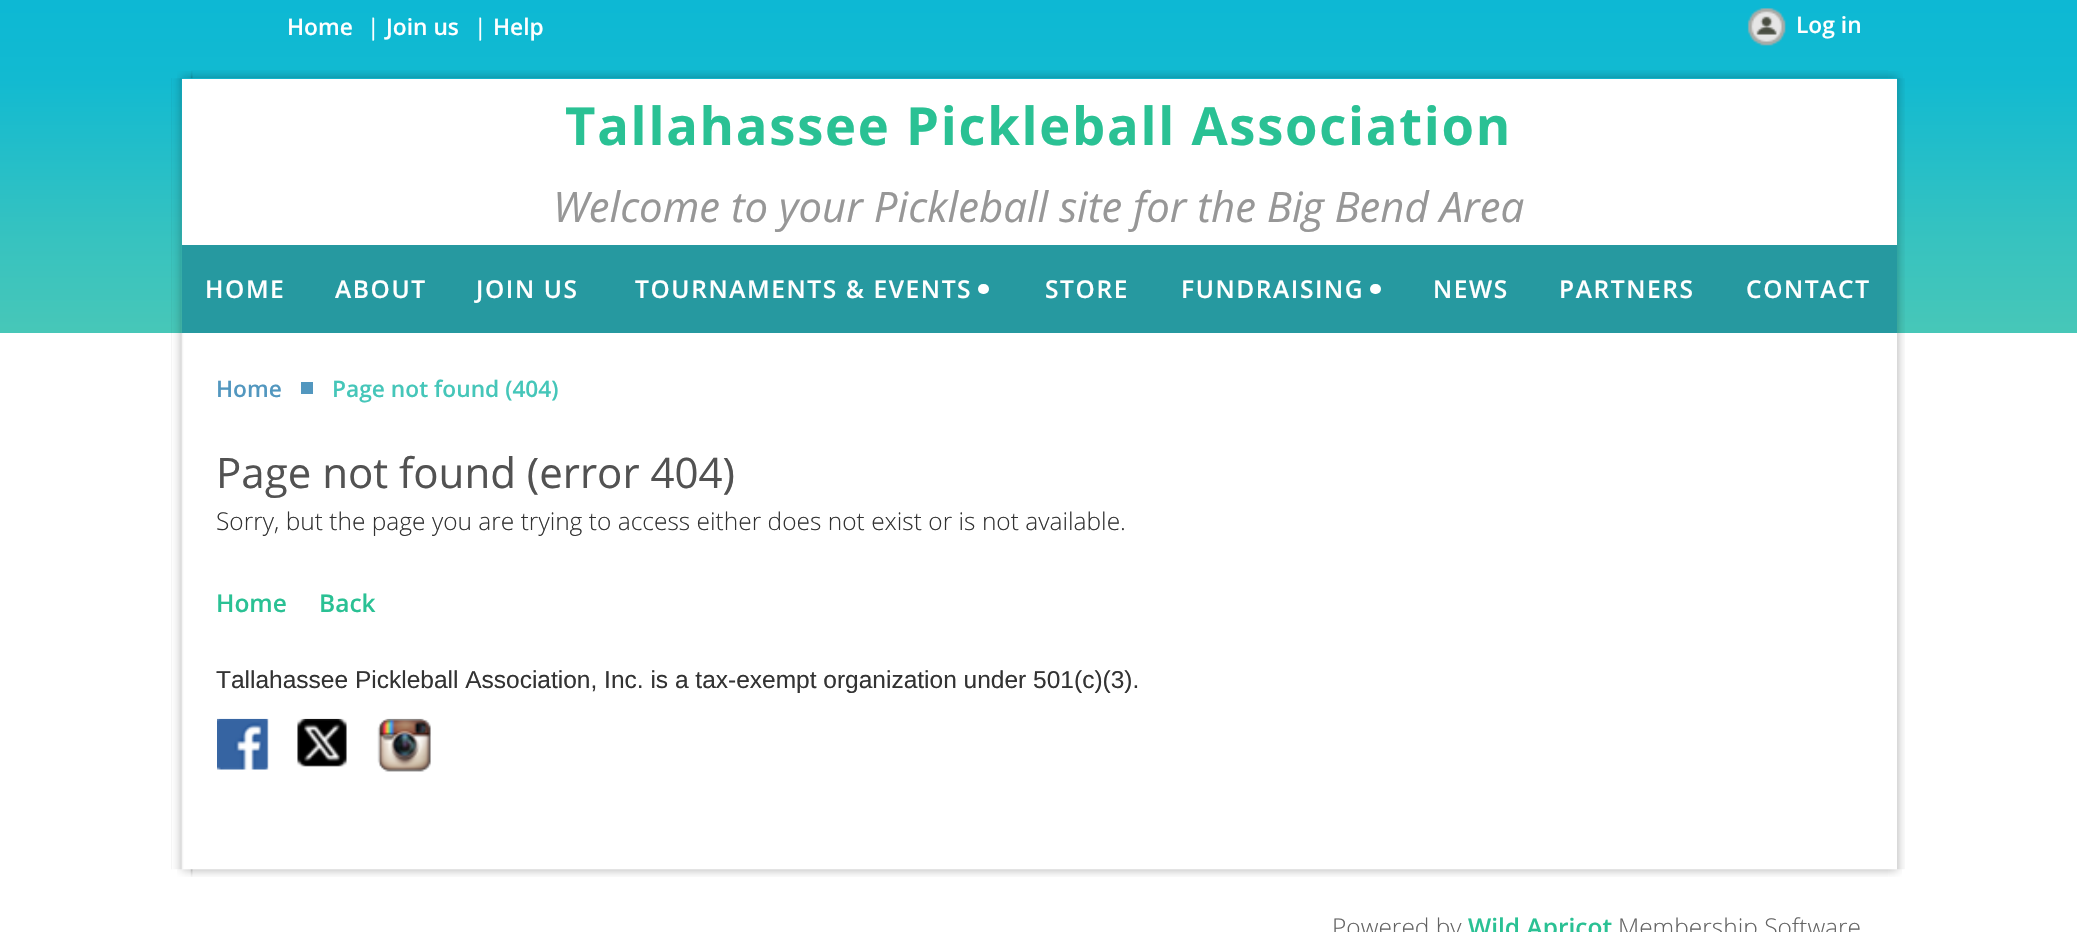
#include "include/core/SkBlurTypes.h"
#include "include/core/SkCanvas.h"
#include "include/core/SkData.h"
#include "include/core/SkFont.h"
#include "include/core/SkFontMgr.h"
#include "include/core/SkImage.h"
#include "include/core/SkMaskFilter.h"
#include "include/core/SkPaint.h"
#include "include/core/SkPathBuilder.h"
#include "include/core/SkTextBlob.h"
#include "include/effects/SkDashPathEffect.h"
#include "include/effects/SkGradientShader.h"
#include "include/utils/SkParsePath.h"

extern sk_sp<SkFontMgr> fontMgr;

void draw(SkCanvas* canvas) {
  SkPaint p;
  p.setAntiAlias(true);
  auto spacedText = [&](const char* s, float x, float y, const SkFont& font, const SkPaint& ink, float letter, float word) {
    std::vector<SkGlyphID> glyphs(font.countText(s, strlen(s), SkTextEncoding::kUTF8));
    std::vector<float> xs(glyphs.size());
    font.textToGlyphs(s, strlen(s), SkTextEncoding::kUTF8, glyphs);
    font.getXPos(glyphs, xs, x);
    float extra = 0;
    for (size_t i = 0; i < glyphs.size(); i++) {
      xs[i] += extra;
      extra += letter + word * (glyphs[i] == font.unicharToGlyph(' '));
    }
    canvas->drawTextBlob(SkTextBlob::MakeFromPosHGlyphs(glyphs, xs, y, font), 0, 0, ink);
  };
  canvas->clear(SK_ColorWHITE);
  {
    const SkColor colors[] = {SkColorSetRGB(9, 183, 214), SkColorSetRGB(18, 186, 209)};
    const float stops[] = {0, 1};
    const SkPoint ends[] = {{1039, -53}, {1039, 79}};
    p.setShader(SkGradientShader::MakeLinear(ends, colors, stops, 2, SkTileMode::kClamp));
    p.setAlpha(255);
  }
  canvas->drawRect(SkRect::MakeLTRB(0, 0, 2077, 79), p);
  canvas->drawImageRect(SkImages::DeferredFromEncodedData(SkData::MakeFromFileName("images/1.png")), SkRect::MakeLTRB(1747, 8, 1786, 46), SkSamplingOptions());
  canvas->drawImageRect(SkImages::DeferredFromEncodedData(SkData::MakeFromFileName("images/2.png")), SkRect::MakeLTRB(177, 71, 1903, 79), SkSamplingOptions());
  canvas->drawImageRect(SkImages::DeferredFromEncodedData(SkData::MakeFromFileName("images/3.png")), SkRect::MakeLTRB(190, 70, 1889, 79), SkSamplingOptions());
  {
    const SkColor colors[] = {SkColorSetRGB(18, 186, 209), SkColorSetRGB(56, 195, 191)};
    const float stops[] = {0, 1};
    const SkPoint ends[] = {{1039, 79}, {1039, 245}};
    p.setShader(SkGradientShader::MakeLinear(ends, colors, stops, 2, SkTileMode::kClamp));
    p.setAlpha(255);
  }
  canvas->drawRect(SkRect::MakeLTRB(0, 79, 2077, 245), p);
  canvas->drawImageRect(SkImages::DeferredFromEncodedData(SkData::MakeFromFileName("images/4.png")), SkRect::MakeLTRB(171, 78, 1905, 245), SkSamplingOptions());
  p.setShader(nullptr);
  p.setColor(SK_ColorWHITE);
  canvas->drawRect(SkRect::MakeLTRB(182, 79, 1897, 245), p);
  {
    const SkColor colors[] = {SkColorSetRGB(56, 195, 191), SkColorSetRGB(71, 199, 184)};
    const float stops[] = {0, 1};
    const SkPoint ends[] = {{1039, 245}, {1039, 333}};
    p.setShader(SkGradientShader::MakeLinear(ends, colors, stops, 2, SkTileMode::kClamp));
    p.setAlpha(255);
  }
  canvas->drawRect(SkRect::MakeLTRB(0, 245, 2077, 333), p);
  canvas->drawImageRect(SkImages::DeferredFromEncodedData(SkData::MakeFromFileName("images/5.png")), SkRect::MakeLTRB(171, 244, 1905, 332), SkSamplingOptions());
  canvas->drawImageRect(SkImages::DeferredFromEncodedData(SkData::MakeFromFileName("images/6.png")), SkRect::MakeLTRB(171, 332, 1905, 870), SkSamplingOptions());
  p.setShader(nullptr);
  p.setColor(SkColorSetRGB(38, 153, 160));
  canvas->drawRect(SkRect::MakeLTRB(182, 245, 1897, 333), p);
  p.setColor(SK_ColorWHITE);
  canvas->drawRoundRect(SkRect::MakeLTRB(978, 284, 989, 294), 5, 5, p);
  canvas->drawRoundRect(SkRect::MakeLTRB(1370, 284, 1381, 294), 5, 5, p);
  p.setColor(SkColorSetRGB(82, 151, 191));
  canvas->drawRect(SkRect::MakeLTRB(301, 382, 313, 394), p);
  canvas->drawImageRect(SkImages::DeferredFromEncodedData(SkData::MakeFromFileName("images/7.png")), SkRect::MakeLTRB(217, 718, 269, 770), SkSamplingOptions());
  canvas->drawImageRect(SkImages::DeferredFromEncodedData(SkData::MakeFromFileName("images/8.png")), SkRect::MakeLTRB(297, 718, 347, 767), SkSamplingOptions());
  canvas->drawImageRect(SkImages::DeferredFromEncodedData(SkData::MakeFromFileName("images/9.png")), SkRect::MakeLTRB(377, 718, 431, 772), SkSamplingOptions());
  canvas->drawImageRect(SkImages::DeferredFromEncodedData(SkData::MakeFromFileName("images/10.png")), SkRect::MakeLTRB(177, 869, 1902, 877), SkSamplingOptions());
  canvas->drawImageRect(SkImages::DeferredFromEncodedData(SkData::MakeFromFileName("images/11.png")), SkRect::MakeLTRB(190, 869, 1889, 877), SkSamplingOptions());
  SkFont font1(fontMgr->matchFamilyStyle("Open Sans", SkFontStyle(600, SkFontStyle::kNormal_Width, SkFontStyle::kUpright_Slant)), 22.75f);
  font1.setSubpixel(true);
  p.setColor(SK_ColorWHITE);
  canvas->drawString("Home", 287, 35, font1, p);
  SkFont font2(fontMgr->matchFamilyStyle("Open Sans", SkFontStyle::Normal()), 22.75f);
  font2.setSubpixel(true);
  canvas->drawString("|", 367, 35, font2, p);
  canvas->drawString("Join us", 386, 35, font1, p);
  canvas->drawString("|", 474, 35, font2, p);
  canvas->drawString("Help", 493, 35, font1, p);
  canvas->drawString("Log in", 1796, 33, font1, p);
  SkFont font3(fontMgr->matchFamilyStyle("Open Sans", SkFontStyle::Bold()), 52.5f);
  font3.setSubpixel(true);
  p.setColor(SkColorSetRGB(42, 193, 148));
  spacedText("Tallahassee Pickleball Association", 565, 145, font3, p, 1.75f, 0);
  SkFont font4(fontMgr->matchFamilyStyle("Open Sans", SkFontStyle::Italic()), 42);
  font4.setSubpixel(true);
  p.setColor(SkColorSetRGB(151, 151, 151));
  canvas->drawString("Welcome to your Pickleball site for the Big Bend Area", 553, 222, font4, p);
  SkFont font5(fontMgr->matchFamilyStyle("Open Sans", SkFontStyle(600, SkFontStyle::kNormal_Width, SkFontStyle::kUpright_Slant)), 24.5f);
  font5.setSubpixel(true);
  p.setColor(SK_ColorWHITE);
  spacedText("HOME", 205, 298, font5, p, 1.6f, 0);
  spacedText("ABOUT", 335, 298, font5, p, 1.6f, 0);
  spacedText("JOIN US", 476, 298, font5, p, 1.6f, 0);
  spacedText("TOURNAMENTS & EVENTS", 635, 298, font5, p, 1.6f, 0);
  spacedText("STORE", 1045, 298, font5, p, 1.6f, 0);
  spacedText("FUNDRAISING", 1181, 298, font5, p, 1.6f, 0);
  spacedText("NEWS", 1433, 298, font5, p, 1.6f, 0);
  spacedText("PARTNERS", 1559, 298, font5, p, 1.6f, 0);
  spacedText("CONTACT", 1746, 298, font5, p, 1.6f, 0);
  p.setColor(SkColorSetRGB(82, 151, 191));
  canvas->drawString("Home", 216, 397, font1, p);
  p.setColor(SkColorSetRGB(69, 198, 185));
  canvas->drawString("Page not found (404)", 332, 397, font1, p);
  SkFont font6(fontMgr->matchFamilyStyle("Open Sans", SkFontStyle::Normal()), 42);
  font6.setSubpixel(true);
  p.setColor(SkColorSetRGB(82, 82, 82));
  canvas->drawString("Page not found (error 404)", 216, 488, font6, p);
  SkFont font7(fontMgr->matchFamilyStyle("Open Sans", SkFontStyle(300, SkFontStyle::kNormal_Width, SkFontStyle::kUpright_Slant)), 24.5f);
  font7.setSubpixel(true);
  p.setColor(SkColorSetRGB(51, 51, 51));
  canvas->drawString("Sorry, but the page you are trying to access either does not exist or is not available.", 216, 530, font7, p);
  p.setColor(SkColorSetRGB(42, 193, 148));
  canvas->drawString("Home", 216, 612, font5, p);
  canvas->drawString("Back", 319, 612, font5, p);
  SkFont font8(fontMgr->matchFamilyStyle("Liberation Sans", SkFontStyle::Normal()), 24.5f);
  font8.setSubpixel(true);
  p.setColor(SkColorSetRGB(51, 51, 51));
  canvas->drawString("Tallahassee Pickleball Association, Inc. is a tax-exempt organization under 501(c)(3).", 216, 688, font8, p);
  p.setColor(SkColorSetRGB(100, 100, 100));
  canvas->drawString("Powered by", 1332, 936, font7, p);
  p.setColor(SkColorSetRGB(42, 193, 148));
  canvas->drawString("Wild Apricot", 1468, 936, font5, p);
  p.setColor(SkColorSetRGB(100, 100, 100));
  canvas->drawString("Membership Software", 1618, 936, font7, p);
}
